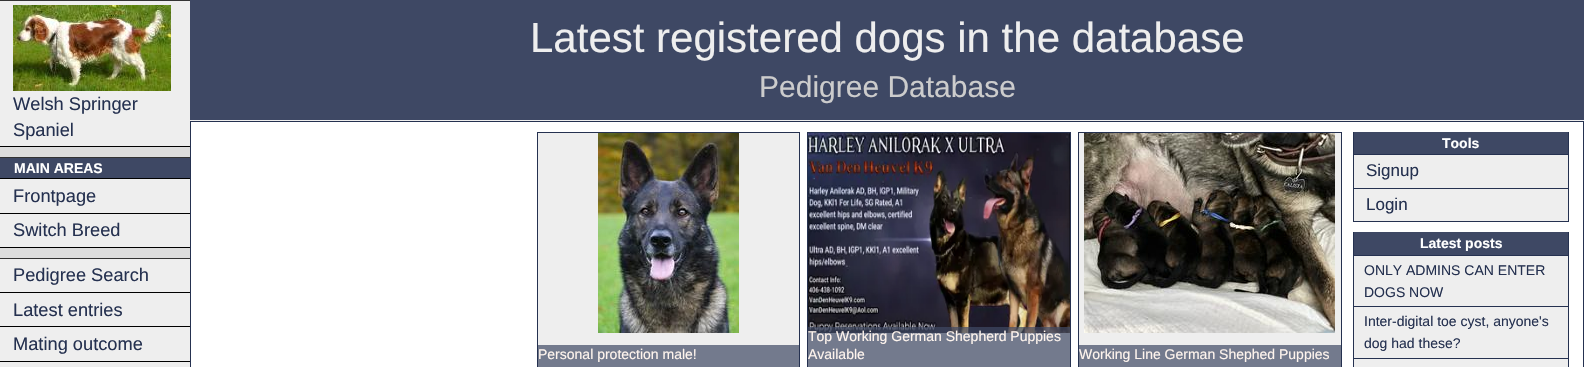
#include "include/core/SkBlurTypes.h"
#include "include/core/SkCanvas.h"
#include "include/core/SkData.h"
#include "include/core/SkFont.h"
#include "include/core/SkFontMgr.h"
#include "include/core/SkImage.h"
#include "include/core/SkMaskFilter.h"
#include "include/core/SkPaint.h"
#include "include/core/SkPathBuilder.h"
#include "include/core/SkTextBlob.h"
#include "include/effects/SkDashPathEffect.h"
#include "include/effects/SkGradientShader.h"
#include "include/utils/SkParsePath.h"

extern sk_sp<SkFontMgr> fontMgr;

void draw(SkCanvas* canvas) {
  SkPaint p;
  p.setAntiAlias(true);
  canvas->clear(SK_ColorWHITE);
  p.setColor(SkColorSetRGB(221, 221, 221));
  canvas->drawRect(SkRect::MakeLTRB(0, 147, 190, 258), p);
  p.setColor(SkColorSetRGB(238, 238, 238));
  canvas->drawRect(SkRect::MakeLTRB(0, 1, 190, 146), p);
  p.setColor(SkColorSetRGB(51, 51, 51));
  canvas->drawRect(SkRect::MakeLTRB(0, 0, 190, 1), p);
  p.setColor(SK_ColorBLACK);
  canvas->drawRect(SkRect::MakeLTRB(0, 146, 190, 147), p);
  canvas->drawImageRect(SkImages::DeferredFromEncodedData(SkData::MakeFromFileName("images/1.png")), SkRect::MakeLTRB(13, 5, 171, 91), SkSamplingOptions());
  p.setColor(SkColorSetRGB(238, 238, 238));
  canvas->drawRect(SkRect::MakeLTRB(0, 179, 190, 247), p);
  p.setColor(SkColorSetRGB(51, 51, 51));
  canvas->drawRect(SkRect::MakeLTRB(0, 157, 190, 158), p);
  p.setColor(SkColorSetRGB(62, 72, 100));
  canvas->drawRect(SkRect::MakeLTRB(0, 158, 190, 178), p);
  p.setColor(SK_ColorBLACK);
  canvas->drawRect(SkRect::MakeLTRB(0, 178, 190, 179), p);
  canvas->drawRect(SkRect::MakeLTRB(0, 213, 190, 214), p);
  canvas->drawRect(SkRect::MakeLTRB(0, 247, 190, 248), p);
  p.setColor(SkColorSetRGB(238, 238, 238));
  canvas->drawRect(SkRect::MakeLTRB(0, 259, 190, 367), p);
  p.setColor(SkColorSetRGB(51, 51, 51));
  canvas->drawRect(SkRect::MakeLTRB(0, 258, 190, 259), p);
  p.setColor(SK_ColorBLACK);
  canvas->drawRect(SkRect::MakeLTRB(0, 292, 190, 293), p);
  canvas->drawRect(SkRect::MakeLTRB(0, 326, 190, 327), p);
  canvas->drawRect(SkRect::MakeLTRB(0, 361, 190, 362), p);
  p.setColor(SkColorSetRGB(62, 72, 100));
  canvas->drawRect(SkRect::MakeLTRB(190, 0, 1584, 120), p);
  p.setColor(SkColorSetRGB(238, 238, 238));
  canvas->drawRect(SkRect::MakeLTRB(190, 120, 1584, 121), p);
  p.setStyle(SkPaint::kStroke_Style);
  p.setStrokeWidth(1);
  p.setColor(SkColorSetRGB(37, 49, 80));
  canvas->drawRect(SkRect::MakeLTRB(190.5f, 121.5f, 1583.5f, 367.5f), p);
  p.setStyle(SkPaint::kFill_Style);
  p.setColor(SkColorSetRGB(238, 238, 238));
  canvas->drawRect(SkRect::MakeLTRB(538, 133, 799, 345), p);
  p.setStyle(SkPaint::kStroke_Style);
  p.setColor(SkColorSetRGB(37, 49, 80));
  canvas->drawRect(SkRect::MakeLTRB(537.5f, 132.5f, 799.5f, 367.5f), p);
  canvas->drawImageRect(SkImages::DeferredFromEncodedData(SkData::MakeFromFileName("images/2.png")), SkRect::MakeLTRB(598, 133, 739, 333), SkSamplingOptions());
  p.setStyle(SkPaint::kFill_Style);
  p.setColor(SkColorSetRGB(115, 122, 141));
  canvas->drawRect(SkRect::MakeLTRB(538, 345, 799, 367), p);
  p.setColor(SkColorSetRGB(238, 238, 238));
  canvas->drawRect(SkRect::MakeLTRB(808, 333, 1070, 367), p);
  p.setStyle(SkPaint::kStroke_Style);
  p.setColor(SkColorSetRGB(37, 49, 80));
  canvas->drawRect(SkRect::MakeLTRB(807.5f, 132.5f, 1070.5f, 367.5f), p);
  canvas->drawImageRect(SkImages::DeferredFromEncodedData(SkData::MakeFromFileName("images/3.png")), SkRect::MakeLTRB(808, 133, 1070, 333), SkSamplingOptions());
  p.setStyle(SkPaint::kFill_Style);
  p.setColor(SkColorSetARGB(179, 62, 72, 100));
  canvas->drawRect(SkRect::MakeLTRB(808, 327, 1070, 367), p);
  p.setColor(SkColorSetRGB(238, 238, 238));
  canvas->drawRect(SkRect::MakeLTRB(1079, 133, 1341, 345), p);
  p.setStyle(SkPaint::kStroke_Style);
  p.setColor(SkColorSetRGB(37, 49, 80));
  canvas->drawRect(SkRect::MakeLTRB(1078.5f, 132.5f, 1341.5f, 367.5f), p);
  canvas->drawImageRect(SkImages::DeferredFromEncodedData(SkData::MakeFromFileName("images/4.png")), SkRect::MakeLTRB(1084, 133, 1335, 333), SkSamplingOptions());
  p.setStyle(SkPaint::kFill_Style);
  p.setColor(SkColorSetRGB(115, 122, 141));
  canvas->drawRect(SkRect::MakeLTRB(1079, 345, 1341, 367), p);
  p.setColor(SkColorSetRGB(62, 72, 100));
  canvas->drawRect(SkRect::MakeLTRB(1354, 132, 1568, 154), p);
  p.setColor(SkColorSetRGB(37, 49, 80));
  canvas->drawRect(SkRect::MakeLTRB(1568, 132, 1569, 222), p);
  canvas->drawRect(SkRect::MakeLTRB(1353, 154, 1569, 155), p);
  canvas->drawRect(SkRect::MakeLTRB(1353, 132, 1354, 155), p);
  canvas->drawRect(SkRect::MakeLTRB(1353, 188, 1569, 189), p);
  canvas->drawRect(SkRect::MakeLTRB(1353, 155, 1354, 189), p);
  p.setColor(SkColorSetRGB(238, 238, 238));
  canvas->drawRect(SkRect::MakeLTRB(1354, 155, 1568, 188), p);
  p.setColor(SkColorSetRGB(37, 49, 80));
  canvas->drawRect(SkRect::MakeLTRB(1353, 221, 1569, 222), p);
  canvas->drawRect(SkRect::MakeLTRB(1353, 189, 1354, 222), p);
  p.setColor(SkColorSetRGB(238, 238, 238));
  canvas->drawRect(SkRect::MakeLTRB(1354, 189, 1568, 221), p);
  p.setColor(SkColorSetRGB(62, 72, 100));
  canvas->drawRect(SkRect::MakeLTRB(1354, 232, 1568, 255), p);
  p.setColor(SkColorSetRGB(37, 49, 80));
  canvas->drawRect(SkRect::MakeLTRB(1568, 232, 1569, 367), p);
  canvas->drawRect(SkRect::MakeLTRB(1353, 255, 1569, 256), p);
  canvas->drawRect(SkRect::MakeLTRB(1353, 232, 1354, 256), p);
  canvas->drawRect(SkRect::MakeLTRB(1353, 306, 1569, 307), p);
  canvas->drawRect(SkRect::MakeLTRB(1353, 256, 1354, 307), p);
  p.setColor(SkColorSetRGB(238, 238, 238));
  canvas->drawRect(SkRect::MakeLTRB(1354, 256, 1568, 306), p);
  p.setColor(SkColorSetRGB(37, 49, 80));
  canvas->drawRect(SkRect::MakeLTRB(1353, 358, 1569, 359), p);
  canvas->drawRect(SkRect::MakeLTRB(1353, 307, 1354, 367), p);
  p.setColor(SkColorSetRGB(238, 238, 238));
  canvas->drawRect(SkRect::MakeLTRB(1354, 307, 1568, 358), p);
  canvas->drawRect(SkRect::MakeLTRB(1354, 359, 1568, 367), p);
  SkFont font1(fontMgr->matchFamilyStyle("Liberation Sans", SkFontStyle::Normal()), 18.25f);
  font1.setSubpixel(true);
  p.setColor(SkColorSetRGB(37, 49, 80));
  canvas->drawString("Welsh Springer", 13, 110, font1, p);
  canvas->drawString("Spaniel", 13, 136, font1, p);
  SkFont font2(fontMgr->matchFamilyStyle("Liberation Sans", SkFontStyle::Bold()), 14);
  font2.setSubpixel(true);
  p.setColor(SK_ColorWHITE);
  canvas->drawString("MAIN AREAS", 14, 173, font2, p);
  p.setColor(SkColorSetRGB(37, 49, 80));
  canvas->drawString("Frontpage", 13, 202, font1, p);
  canvas->drawString("Switch Breed", 13, 236, font1, p);
  canvas->drawString("Pedigree Search", 13, 281, font1, p);
  canvas->drawString("Latest entries", 13, 316, font1, p);
  canvas->drawString("Mating outcome", 13, 350, font1, p);
  SkFont font3(fontMgr->matchFamilyStyle("Liberation Sans", SkFontStyle::Normal()), 42);
  font3.setSubpixel(true);
  p.setColor(SkColorSetRGB(238, 238, 238));
  canvas->drawString("Latest registered dogs in the database", 530, 52, font3, p);
  SkFont font4(fontMgr->matchFamilyStyle("Liberation Sans", SkFontStyle::Normal()), 30);
  font4.setSubpixel(true);
  p.setColor(SkColorSetRGB(204, 204, 204));
  canvas->drawString("Pedigree Database", 759, 97, font4, p);
  SkFont font5(fontMgr->matchFamilyStyle("Liberation Sans", SkFontStyle::Normal()), 14);
  font5.setSubpixel(true);
  p.setColor(SkColorSetRGB(255, 245, 238));
  canvas->drawString("Personal protection male!", 538, 359, font5, p);
  canvas->drawString("Top Working German Shepherd Puppies", 808, 341, font5, p);
  canvas->drawString("Available", 808, 359, font5, p);
  canvas->drawString("Working Line German Shephed Puppies", 1079, 359, font5, p);
  p.setColor(SK_ColorWHITE);
  canvas->drawString("Tools", 1442, 148, font2, p);
  SkFont font6(fontMgr->matchFamilyStyle("Liberation Sans", SkFontStyle::Normal()), 17);
  font6.setSubpixel(true);
  p.setColor(SkColorSetRGB(37, 49, 80));
  canvas->drawString("Signup", 1366, 176, font6, p);
  canvas->drawString("Login", 1366, 210, font6, p);
  p.setColor(SK_ColorWHITE);
  canvas->drawString("Latest posts", 1420, 248, font2, p);
  p.setColor(SkColorSetRGB(37, 49, 80));
  canvas->drawString("ONLY ADMINS CAN ENTER", 1364, 275, font5, p);
  canvas->drawString("DOGS NOW", 1364, 297, font5, p);
  canvas->drawString("Inter-digital toe cyst, anyone's", 1364, 326, font5, p);
  canvas->drawString("dog had these?", 1364, 348, font5, p);
}
